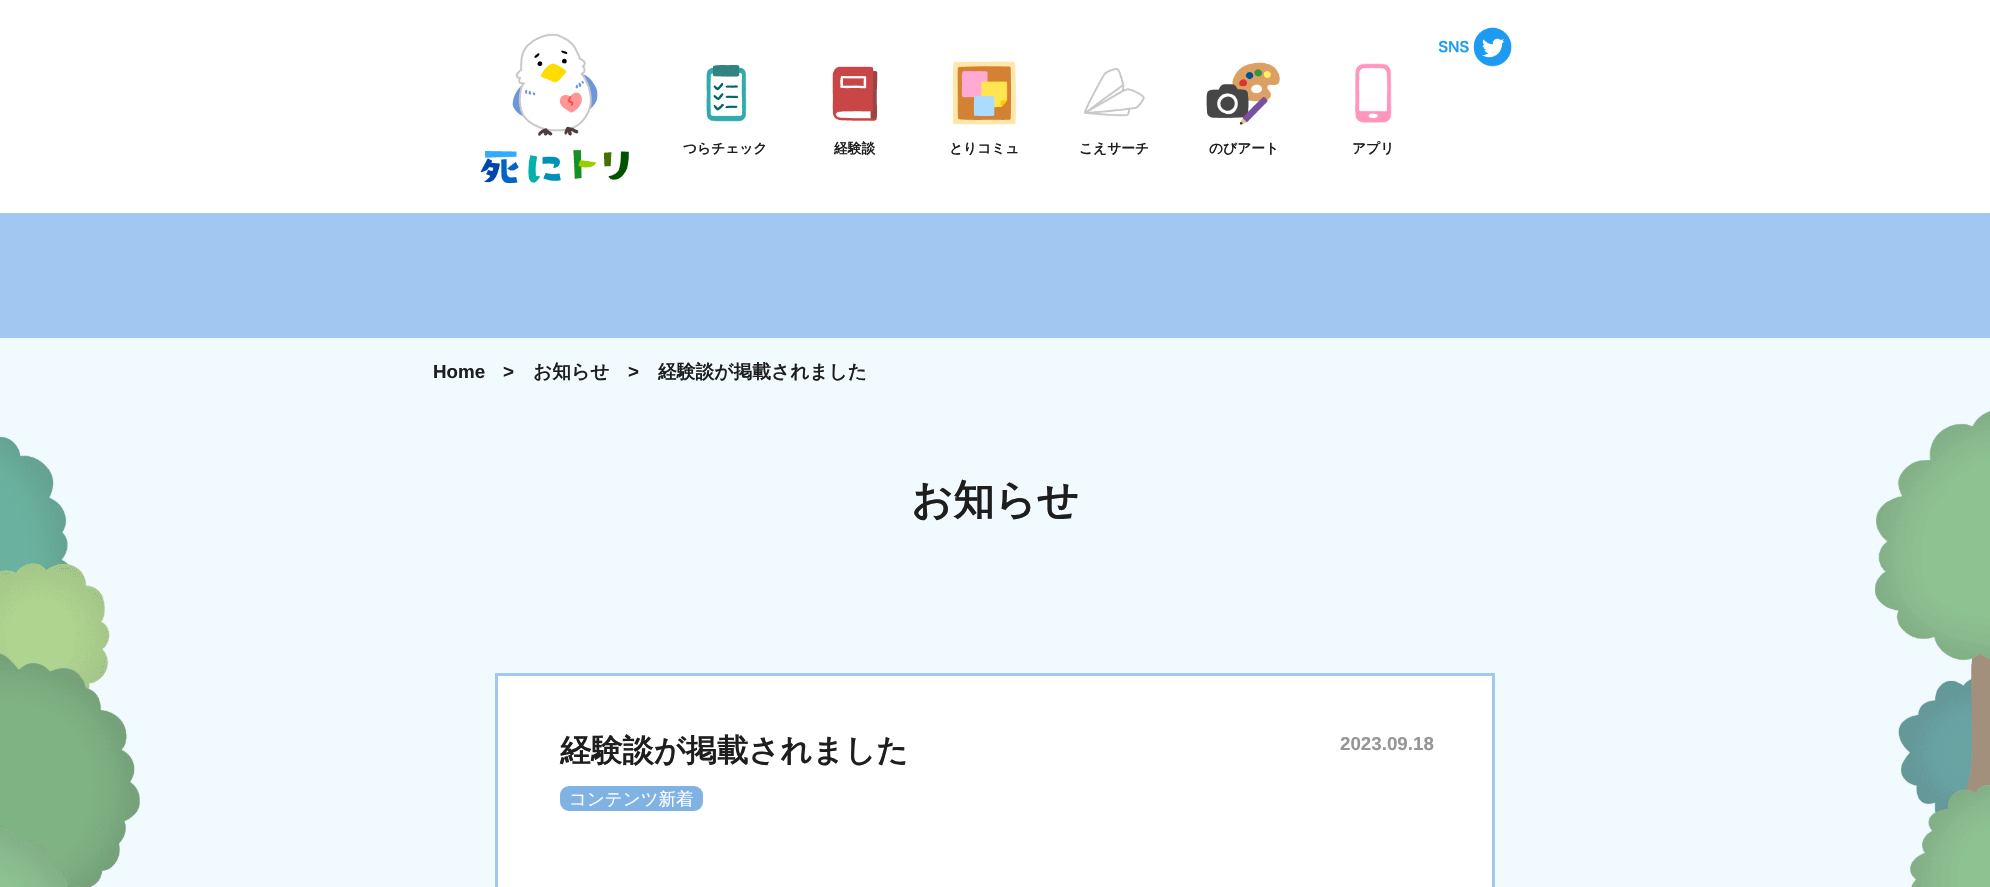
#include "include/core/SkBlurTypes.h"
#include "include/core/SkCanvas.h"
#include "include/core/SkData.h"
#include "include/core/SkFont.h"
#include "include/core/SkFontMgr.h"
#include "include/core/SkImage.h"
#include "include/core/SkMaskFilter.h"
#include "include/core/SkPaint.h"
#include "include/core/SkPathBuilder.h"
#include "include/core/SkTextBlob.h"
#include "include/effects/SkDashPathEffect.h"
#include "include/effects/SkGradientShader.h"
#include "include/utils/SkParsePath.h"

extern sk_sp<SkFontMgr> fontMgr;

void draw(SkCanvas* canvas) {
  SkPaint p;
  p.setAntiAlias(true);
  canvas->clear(SkColorSetRGB(240, 250, 255));
  p.setColor(SK_ColorWHITE);
  canvas->drawRect(SkRect::MakeLTRB(0, 0, 1990, 213), p);
  canvas->drawImageRect(SkImages::DeferredFromEncodedData(SkData::MakeFromFileName("images/1.png")), SkRect::MakeLTRB(480, 33, 629, 184), SkSamplingOptions());
  canvas->drawImageRect(SkImages::DeferredFromEncodedData(SkData::MakeFromFileName("images/2.png")), SkRect::MakeLTRB(706, 65, 747, 122), SkSamplingOptions());
  canvas->drawImageRect(SkImages::DeferredFromEncodedData(SkData::MakeFromFileName("images/3.png")), SkRect::MakeLTRB(832, 66, 878, 122), SkSamplingOptions());
  canvas->drawImageRect(SkImages::DeferredFromEncodedData(SkData::MakeFromFileName("images/4.png")), SkRect::MakeLTRB(952, 61, 1017, 125), SkSamplingOptions());
  canvas->drawImageRect(SkImages::DeferredFromEncodedData(SkData::MakeFromFileName("images/5.png")), SkRect::MakeLTRB(1083, 67, 1145, 117), SkSamplingOptions());
  canvas->drawImageRect(SkImages::DeferredFromEncodedData(SkData::MakeFromFileName("images/6.png")), SkRect::MakeLTRB(1206, 62, 1280, 125), SkSamplingOptions());
  canvas->drawImageRect(SkImages::DeferredFromEncodedData(SkData::MakeFromFileName("images/7.png")), SkRect::MakeLTRB(1355, 63, 1392, 123), SkSamplingOptions());
  canvas->drawImageRect(SkImages::DeferredFromEncodedData(SkData::MakeFromFileName("images/8.png")), SkRect::MakeLTRB(1438, 27, 1512, 67), SkSamplingOptions());
  p.setColor(SkColorSetRGB(160, 200, 240));
  canvas->drawRect(SkRect::MakeLTRB(0, 213, 1990, 338), p);
  canvas->drawImageRect(SkImages::DeferredFromEncodedData(SkData::MakeFromFileName("images/9.png")), SkRect::MakeLTRB(0, 436, 140, 887), SkSamplingOptions());
  p.setColor(SK_ColorWHITE);
  canvas->drawRect(SkRect::MakeLTRB(496.5f, 674.5f, 1493.5f, 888.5f), p);
  p.setStyle(SkPaint::kStroke_Style);
  p.setStrokeWidth(3);
  p.setColor(SkColorSetRGB(160, 200, 240));
  canvas->drawRect(SkRect::MakeLTRB(496.5f, 674.5f, 1493.5f, 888.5f), p);
  p.setStyle(SkPaint::kFill_Style);
  p.setColor(SkColorSetRGB(128, 178, 227));
  canvas->drawRoundRect(SkRect::MakeLTRB(560, 786, 703, 811), 9, 9, p);
  canvas->drawImageRect(SkImages::DeferredFromEncodedData(SkData::MakeFromFileName("images/10.png")), SkRect::MakeLTRB(1875, 410, 1990, 887), SkSamplingOptions());
  SkFont font1(fontMgr->matchFamilyStyle("WenQuanYi Zen Hei", SkFontStyle::Bold()), 13.75f);
  font1.setSubpixel(true);
  p.setColor(SkColorSetRGB(30, 30, 30));
  canvas->drawString("つらチェック", 683, 153, font1, p);
  canvas->drawString("経験談", 834, 153, font1, p);
  canvas->drawString("とりコミュ", 949, 153, font1, p);
  canvas->drawString("こえサーチ", 1079, 153, font1, p);
  canvas->drawString("のびアート", 1209, 153, font1, p);
  canvas->drawString("アプリ", 1352, 153, font1, p);
  SkFont font2(fontMgr->matchFamilyStyle("Liberation Sans", SkFontStyle::Bold()), 18.75f);
  font2.setSubpixel(true);
  canvas->drawString("Home", 433, 378, font2, p);
  canvas->drawString(">", 503, 378, font2, p);
  SkFont font3(fontMgr->matchFamilyStyle("WenQuanYi Zen Hei", SkFontStyle::Bold()), 18.75f);
  font3.setSubpixel(true);
  canvas->drawString("お知らせ", 533, 378, font3, p);
  canvas->drawString(">", 628, 378, font2, p);
  canvas->drawString("経験談が掲載されました", 658, 378, font3, p);
  SkFont font4(fontMgr->matchFamilyStyle("WenQuanYi Zen Hei", SkFontStyle::Bold()), 41.25f);
  font4.setSubpixel(true);
  canvas->drawString("お知らせ", 911, 514, font4, p);
  SkFont font5(fontMgr->matchFamilyStyle("WenQuanYi Zen Hei", SkFontStyle::Bold()), 31.25f);
  font5.setSubpixel(true);
  canvas->drawString("経験談が掲載されました", 560, 761, font5, p);
  p.setColor(SkColorSetRGB(150, 150, 150));
  canvas->drawString("2023.09.18", 1340, 750, font2, p);
  SkFont font6(fontMgr->matchFamilyStyle("WenQuanYi Zen Hei", SkFontStyle(500, SkFontStyle::kNormal_Width, SkFontStyle::kUpright_Slant)), 17.5f);
  font6.setSubpixel(true);
  p.setColor(SK_ColorWHITE);
  canvas->drawString("コンテンツ新着", 569, 805, font6, p);
}
